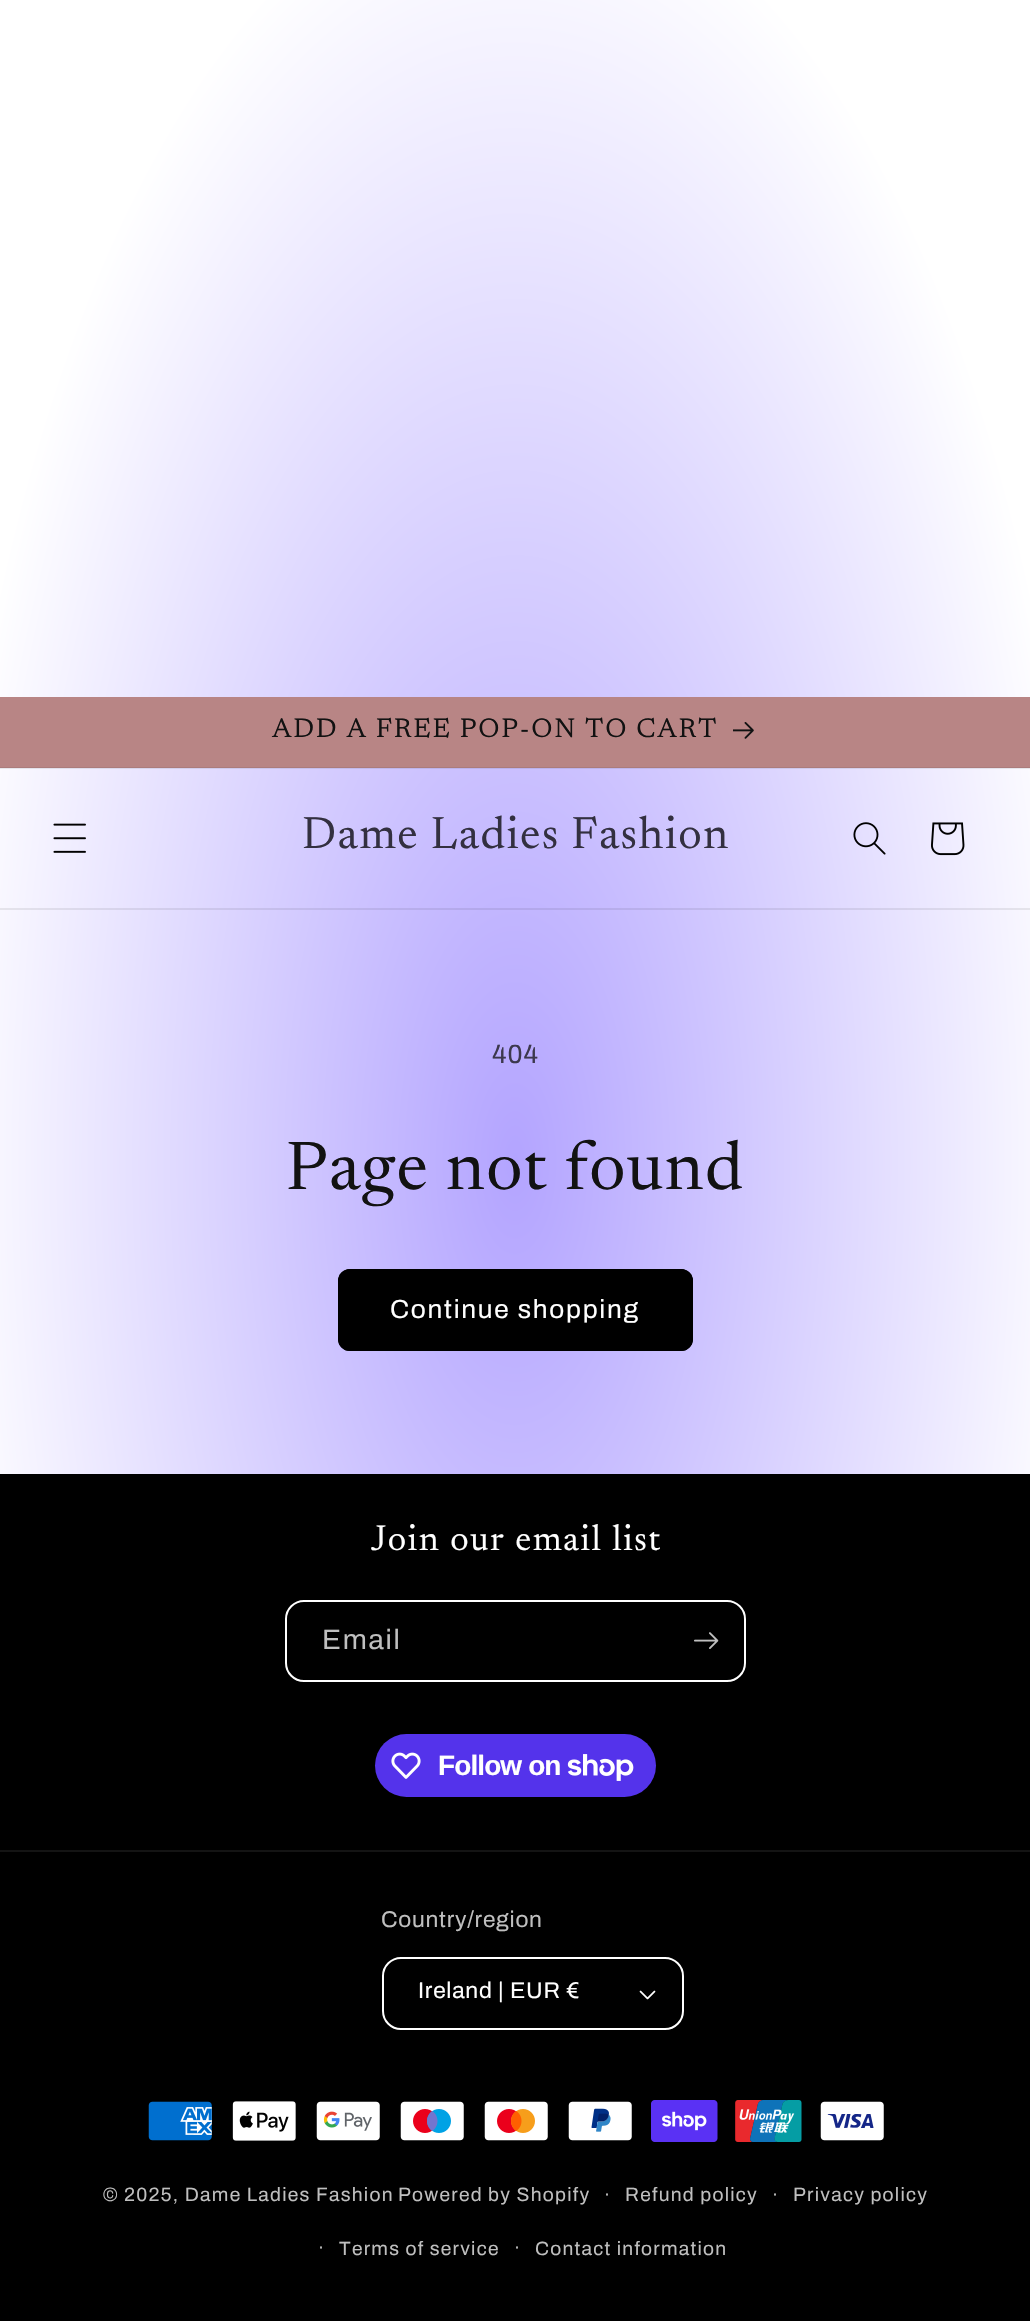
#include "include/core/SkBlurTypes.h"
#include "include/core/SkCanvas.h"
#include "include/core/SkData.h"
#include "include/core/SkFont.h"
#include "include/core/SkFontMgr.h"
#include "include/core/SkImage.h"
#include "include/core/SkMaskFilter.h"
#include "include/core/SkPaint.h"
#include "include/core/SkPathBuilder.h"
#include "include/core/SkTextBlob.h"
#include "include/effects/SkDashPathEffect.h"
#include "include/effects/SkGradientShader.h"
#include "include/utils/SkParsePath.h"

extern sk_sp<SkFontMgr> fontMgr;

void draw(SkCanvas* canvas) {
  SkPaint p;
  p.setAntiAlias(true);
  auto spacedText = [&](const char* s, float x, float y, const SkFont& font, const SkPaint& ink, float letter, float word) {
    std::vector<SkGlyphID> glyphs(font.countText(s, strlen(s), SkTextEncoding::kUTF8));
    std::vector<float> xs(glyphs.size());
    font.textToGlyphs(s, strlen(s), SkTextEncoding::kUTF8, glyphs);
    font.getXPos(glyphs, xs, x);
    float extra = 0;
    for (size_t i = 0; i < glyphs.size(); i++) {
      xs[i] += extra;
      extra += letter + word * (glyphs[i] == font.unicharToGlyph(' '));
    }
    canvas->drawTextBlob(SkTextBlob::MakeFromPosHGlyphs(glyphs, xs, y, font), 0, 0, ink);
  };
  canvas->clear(SK_ColorWHITE);
  {
    const SkColor colors[] = {SkColorSetRGB(179, 164, 255), SK_ColorWHITE, SK_ColorWHITE};
    const float stops[] = {0, 0.79f, 0.97f};
    SkMatrix m = SkMatrix::Translate(515, 1161).preScale(729, 1642);
    p.setShader(SkGradientShader::MakeRadial({0, 0}, 1, colors, stops, 3, SkTileMode::kClamp, 0, &m));
    p.setAlpha(255);
  }
  canvas->drawRect(SkRect::MakeLTRB(0, 0, 1030, 1474), p);
  {
    const SkColor colors[] = {SkColorSetRGB(166, 152, 236), SkColorSetRGB(236, 236, 236), SkColorSetRGB(236, 236, 236)};
    const float stops[] = {0, 0.79f, 0.97f};
    SkMatrix m = SkMatrix::Translate(515, 1161).preScale(729, 1642);
    p.setShader(SkGradientShader::MakeRadial({0, 0}, 1, colors, stops, 3, SkTileMode::kClamp, 0, &m));
    p.setAlpha(255);
  }
  canvas->drawRect(SkRect::MakeLTRB(0, 768, 1030, 769), p);
  {
    const SkColor colors[] = {SkColorSetRGB(165, 151, 235), SkColorSetRGB(235, 235, 235), SkColorSetRGB(235, 235, 235)};
    const float stops[] = {0, 0.79f, 0.97f};
    SkMatrix m = SkMatrix::Translate(515, 1161).preScale(729, 1642);
    p.setShader(SkGradientShader::MakeRadial({0, 0}, 1, colors, stops, 3, SkTileMode::kClamp, 0, &m));
    p.setAlpha(255);
  }
  canvas->drawRect(SkRect::MakeLTRB(0, 908, 1030, 910), p);
  p.setShader(nullptr);
  p.setColor(SkColorSetRGB(184, 133, 133));
  canvas->drawRect(SkRect::MakeLTRB(0, 697, 1030, 767), p);
  p.setColor(SkColorSetRGB(171, 124, 124));
  canvas->drawRect(SkRect::MakeLTRB(0, 767, 1030, 768), p);
  canvas->drawImageRect(SkImages::DeferredFromEncodedData(SkData::MakeFromFileName("images/1.png")), SkRect::MakeLTRB(733, 722, 754, 739), SkSamplingOptions());
  canvas->drawImageRect(SkImages::DeferredFromEncodedData(SkData::MakeFromFileName("images/2.png")), SkRect::MakeLTRB(53, 823, 86, 853), SkSamplingOptions());
  canvas->drawImageRect(SkImages::DeferredFromEncodedData(SkData::MakeFromFileName("images/3.png")), SkRect::MakeLTRB(853, 822, 886, 855), SkSamplingOptions());
  canvas->drawImageRect(SkImages::DeferredFromEncodedData(SkData::MakeFromFileName("images/4.png")), SkRect::MakeLTRB(931, 822, 965, 856), SkSamplingOptions());
  p.setColor(SK_ColorBLACK);
  canvas->drawRoundRect(SkRect::MakeLTRB(338, 1269, 693, 1351), 12, 12, p);
  p.setStyle(SkPaint::kStroke_Style);
  p.setStrokeWidth(2);
  canvas->drawRoundRect(SkRect::MakeLTRB(339, 1270, 692, 1350), 11, 11, p);
  p.setStyle(SkPaint::kFill_Style);
  canvas->drawRect(SkRect::MakeLTRB(0, 1474, 1030, 2321), p);
  p.setStyle(SkPaint::kStroke_Style);
  p.setColor(SK_ColorWHITE);
  canvas->drawRoundRect(SkRect::MakeLTRB(286, 1601, 745, 1681), 18, 18, p);
  canvas->drawImageRect(SkImages::DeferredFromEncodedData(SkData::MakeFromFileName("images/5.png")), SkRect::MakeLTRB(694, 1632, 719, 1649), SkSamplingOptions());
  p.setStyle(SkPaint::kFill_Style);
  p.setColor(SkColorSetRGB(84, 51, 235));
  canvas->drawRoundRect(SkRect::MakeLTRB(375, 1734, 656, 1797), 31.5f, 31.5f, p);
  canvas->drawImageRect(SkImages::DeferredFromEncodedData(SkData::MakeFromFileName("images/6.png")), SkRect::MakeLTRB(391, 1752, 421, 1779), SkSamplingOptions());
  canvas->drawImageRect(SkImages::DeferredFromEncodedData(SkData::MakeFromFileName("images/7.png")), SkRect::MakeLTRB(567, 1754, 634, 1781), SkSamplingOptions());
  p.setColor(SkColorSetRGB(20, 20, 20));
  canvas->drawRect(SkRect::MakeLTRB(0, 1850, 1030, 1852), p);
  canvas->drawImageRect(SkImages::DeferredFromEncodedData(SkData::MakeFromFileName("images/8.png")), SkRect::MakeLTRB(639, 1990, 656, 2000), SkSamplingOptions());
  p.setStyle(SkPaint::kStroke_Style);
  p.setColor(SK_ColorWHITE);
  canvas->drawRoundRect(SkRect::MakeLTRB(383, 1958, 683, 2029), 18, 18, p);
  canvas->drawImageRect(SkImages::DeferredFromEncodedData(SkData::MakeFromFileName("images/9.png")), SkRect::MakeLTRB(148, 2101, 212, 2141), SkSamplingOptions());
  canvas->drawImageRect(SkImages::DeferredFromEncodedData(SkData::MakeFromFileName("images/10.png")), SkRect::MakeLTRB(232, 2101, 296, 2141), SkSamplingOptions());
  canvas->drawImageRect(SkImages::DeferredFromEncodedData(SkData::MakeFromFileName("images/11.png")), SkRect::MakeLTRB(316, 2101, 380, 2141), SkSamplingOptions());
  canvas->drawImageRect(SkImages::DeferredFromEncodedData(SkData::MakeFromFileName("images/12.png")), SkRect::MakeLTRB(400, 2101, 464, 2141), SkSamplingOptions());
  canvas->drawImageRect(SkImages::DeferredFromEncodedData(SkData::MakeFromFileName("images/13.png")), SkRect::MakeLTRB(484, 2101, 548, 2141), SkSamplingOptions());
  canvas->drawImageRect(SkImages::DeferredFromEncodedData(SkData::MakeFromFileName("images/14.png")), SkRect::MakeLTRB(568, 2101, 632, 2141), SkSamplingOptions());
  canvas->drawImageRect(SkImages::DeferredFromEncodedData(SkData::MakeFromFileName("images/15.png")), SkRect::MakeLTRB(651, 2100, 718, 2142), SkSamplingOptions());
  canvas->drawImageRect(SkImages::DeferredFromEncodedData(SkData::MakeFromFileName("images/16.png")), SkRect::MakeLTRB(735, 2100, 802, 2142), SkSamplingOptions());
  canvas->drawImageRect(SkImages::DeferredFromEncodedData(SkData::MakeFromFileName("images/17.png")), SkRect::MakeLTRB(820, 2101, 884, 2141), SkSamplingOptions());
  SkFont font1(fontMgr->matchFamilyStyle("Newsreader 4", SkFontStyle::Normal()), 27.25f);
  font1.setSubpixel(true);
  p.setStyle(SkPaint::kFill_Style);
  p.setColor(SkColorSetRGB(18, 18, 18));
  spacedText("ADD A FREE POP-ON TO CART", 272, 737, font1, p, 1.75f, 0);
  SkFont font2(fontMgr->matchFamilyStyle("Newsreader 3", SkFontStyle::Normal()), 45.5f);
  font2.setSubpixel(true);
  p.setColor(SkColorSetRGB(51, 48, 64));
  spacedText("Dame Ladies Fashion", 302, 848, font2, p, 1.4f, 0);
  SkFont font3(fontMgr->matchFamilyStyle("Archivo", SkFontStyle::Normal()), 26.25f);
  font3.setSubpixel(true);
  p.setColor(SkColorSetRGB(60, 56, 77));
  spacedText("404", 492, 1063, font3, p, 1, 0);
  SkFont font4(fontMgr->matchFamilyStyle("Newsreader", SkFontStyle::Normal()), 68.25f);
  font4.setSubpixel(true);
  p.setColor(SkColorSetRGB(18, 18, 18));
  spacedText("Page not found", 286, 1189, font4, p, 1.4f, 0);
  p.setColor(SK_ColorWHITE);
  spacedText("Continue shopping", 390, 1318, font3, p, 1.75f, 0);
  SkFont font5(fontMgr->matchFamilyStyle("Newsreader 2", SkFontStyle::Normal()), 36.5f);
  font5.setSubpixel(true);
  spacedText("Join our email list", 371, 1550, font5, p, 1.4f, 0.5f);
  SkFont font6(fontMgr->matchFamilyStyle("Archivo", SkFontStyle::Normal()), 28);
  font6.setSubpixel(true);
  p.setColor(SkColorSetRGB(191, 191, 191));
  spacedText("Email", 322, 1649, font6, p, 1.75f, 0);
  SkFont font7(fontMgr->matchFamilyStyle("Liberation Sans", SkFontStyle::Bold()), 28);
  font7.setSubpixel(true);
  p.setColor(SK_ColorWHITE);
  spacedText("Follow on", 438, 1775, font7, p, -0.9f, 0);
  SkFont font8(fontMgr->matchFamilyStyle("Archivo", SkFontStyle::Normal()), 22.75f);
  font8.setSubpixel(true);
  p.setColor(SkColorSetRGB(191, 191, 191));
  spacedText("Country/region", 381, 1927, font8, p, 0.75f, 0);
  p.setColor(SK_ColorWHITE);
  spacedText("Ireland | EUR €", 418, 1998, font8, p, 0.75f, 0);
  SkFont font9(fontMgr->matchFamilyStyle("Archivo", SkFontStyle::Normal()), 18);
  font9.setSubpixel(true);
  p.setColor(SkColorSetRGB(191, 191, 191));
  spacedText("·", 604, 2201, font9, p, 1.25f, 0);
  SkFont font10(fontMgr->matchFamilyStyle("Archivo", SkFontStyle::Normal()), 19.25f);
  font10.setSubpixel(true);
  spacedText("Refund policy", 625, 2201, font10, p, 1.25f, 0);
  spacedText("·", 772, 2201, font9, p, 1.25f, 0);
  spacedText("Privacy policy", 793, 2201, font10, p, 1.25f, 0);
  spacedText("·", 318, 2254, font9, p, 1.25f, 0);
  spacedText("Terms of service", 339, 2255, font10, p, 1.25f, 0);
  spacedText("·", 514, 2254, font9, p, 1.25f, 0);
  spacedText("Contact information", 535, 2255, font10, p, 1.25f, 0);
  spacedText("© 2025, Dame Ladies Fashion", 103, 2201, font10, p, 1.25f, 0);
  spacedText("Powered by Shopify", 398, 2201, font10, p, 1.25f, 0);
}
